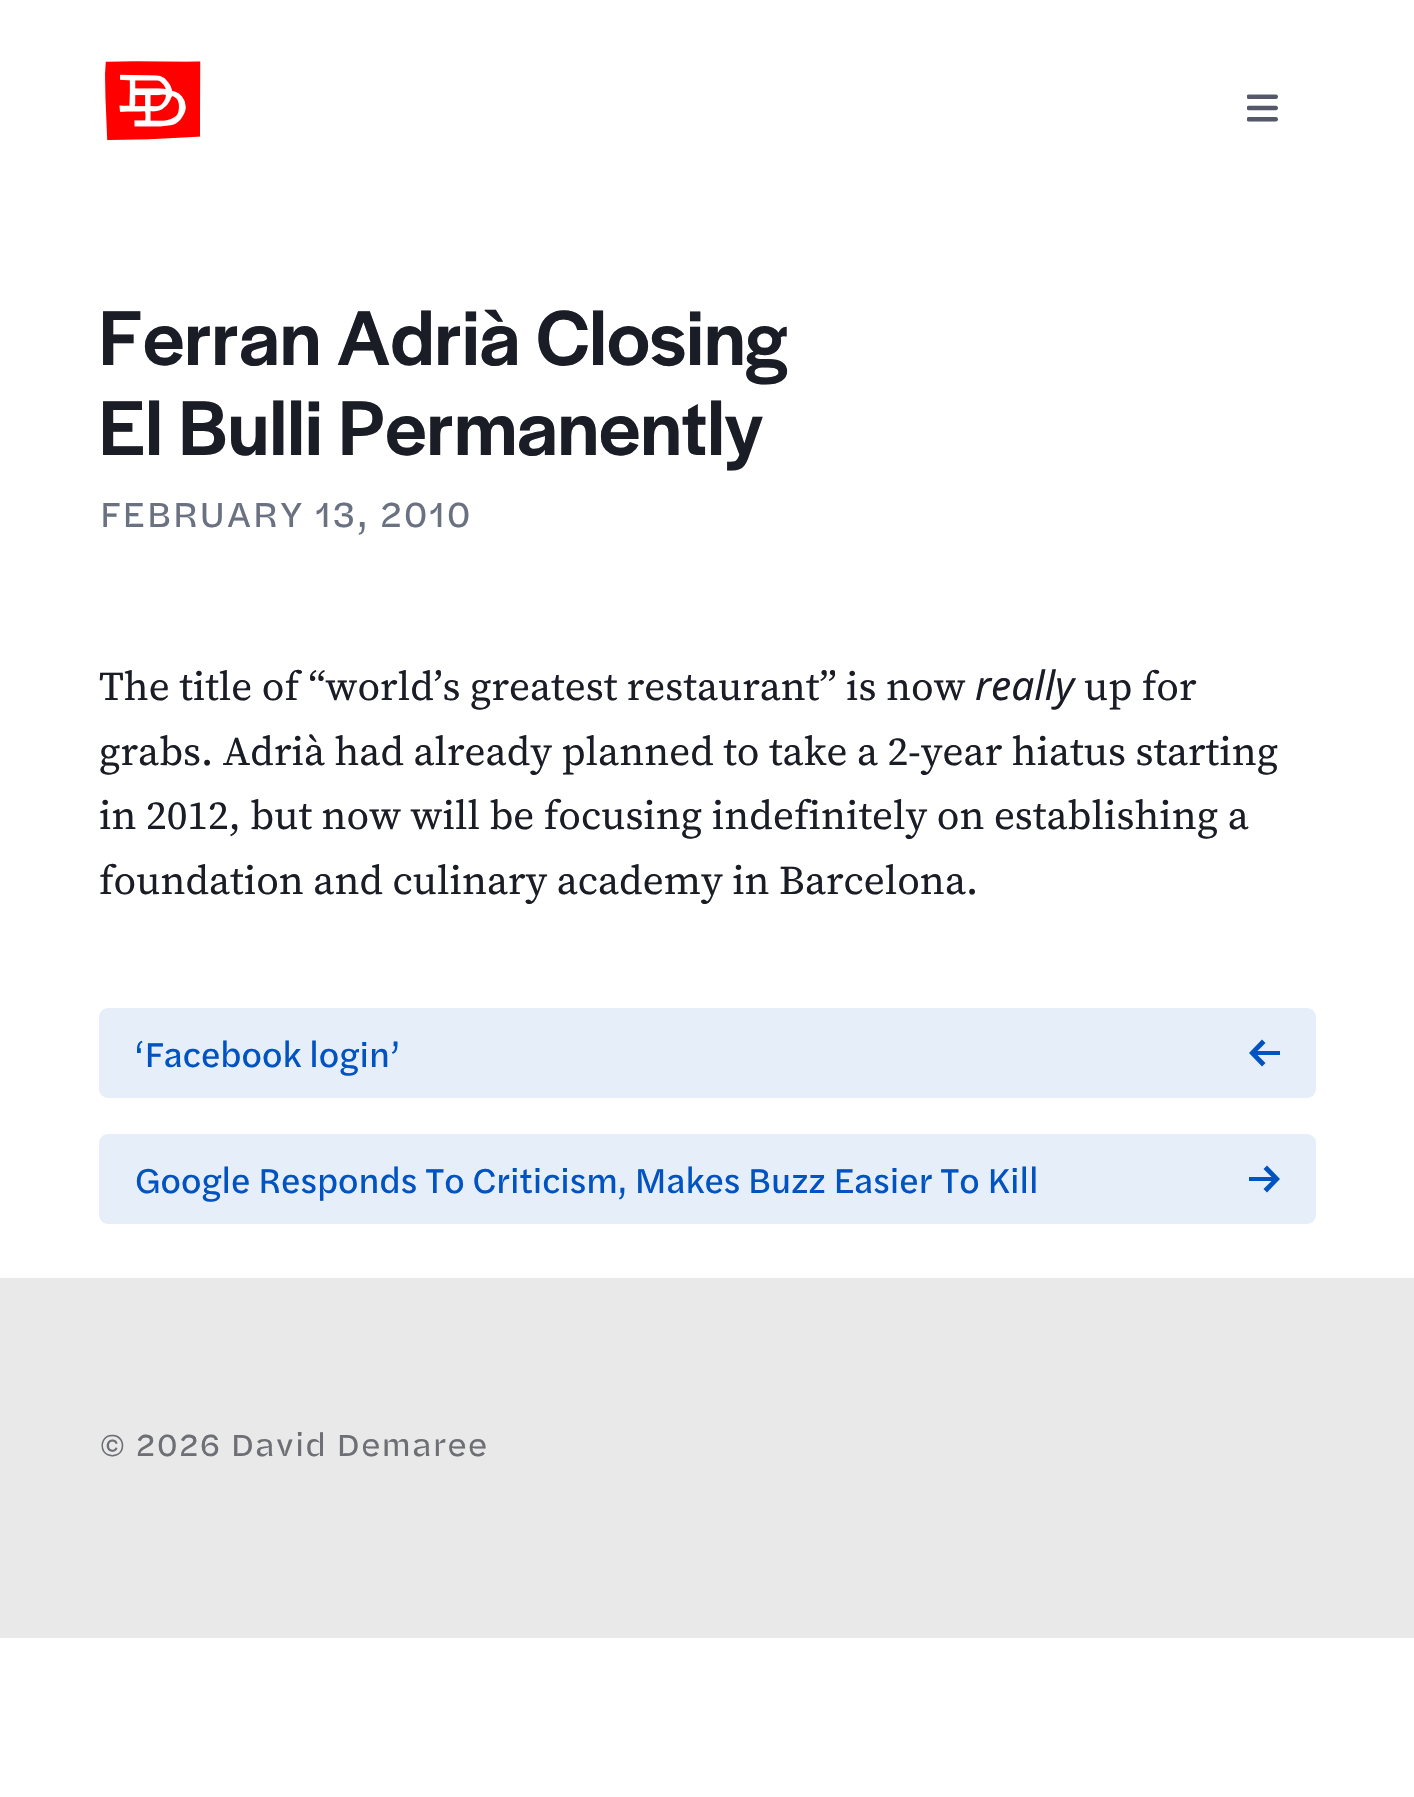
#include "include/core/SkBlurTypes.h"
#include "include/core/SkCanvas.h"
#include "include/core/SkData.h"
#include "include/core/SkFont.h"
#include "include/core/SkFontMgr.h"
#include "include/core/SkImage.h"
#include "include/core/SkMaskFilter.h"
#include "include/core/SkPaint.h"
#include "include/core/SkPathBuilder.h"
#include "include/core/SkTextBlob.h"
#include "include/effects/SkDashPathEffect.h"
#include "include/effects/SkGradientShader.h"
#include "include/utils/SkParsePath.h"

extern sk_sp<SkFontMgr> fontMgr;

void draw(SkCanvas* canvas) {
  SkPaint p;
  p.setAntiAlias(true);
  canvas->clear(SK_ColorWHITE);
  canvas->drawImageRect(SkImages::DeferredFromEncodedData(SkData::MakeFromFileName("images/1.png")), SkRect::MakeLTRB(105, 61, 201, 141), SkSamplingOptions());
  canvas->drawImageRect(SkImages::DeferredFromEncodedData(SkData::MakeFromFileName("images/2.png")), SkRect::MakeLTRB(1247, 94, 1278, 122), SkSamplingOptions());
  p.setColor(SkColorSetRGB(230, 238, 249));
  canvas->drawRoundRect(SkRect::MakeLTRB(99, 1008, 1316, 1098), 9, 9, p);
  p.setColor(SkColorSetRGB(0, 83, 192));
  canvas->drawPath(SkPathBuilder().moveTo(1250.5f, 1054.5f).lineTo(1249, 1053).lineTo(1262, 1039.5f).lineTo(1265.5f, 1043).lineTo(1257.5f, 1051).lineTo(1280, 1051).lineTo(1280, 1055).lineTo(1257.5f, 1055).lineTo(1265.5f, 1063).lineTo(1262, 1066.5f).close().detach(), p);
  p.setColor(SkColorSetRGB(230, 238, 249));
  canvas->drawRoundRect(SkRect::MakeLTRB(99, 1134, 1316, 1224), 9, 9, p);
  p.setColor(SkColorSetRGB(0, 83, 192));
  canvas->drawPath(SkPathBuilder().moveTo(1278.5f, 1180.5f).lineTo(1280, 1179).lineTo(1267, 1165.5f).lineTo(1263.5f, 1169).lineTo(1271.5f, 1177).lineTo(1249, 1177).lineTo(1249, 1181).lineTo(1271.5f, 1181).lineTo(1263.5f, 1189).lineTo(1267, 1192.5f).close().detach(), p);
  p.setColor(SkColorSetRGB(233, 233, 234));
  canvas->drawRect(SkRect::MakeLTRB(0, 1278, 1414, 1638), p);
  SkFont font1(fontMgr->matchFamilyStyle("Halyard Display", SkFontStyle(500, SkFontStyle::kNormal_Width, SkFontStyle::kUpright_Slant)), 81);
  font1.setSubpixel(true);
  p.setColor(SkColorSetRGB(27, 29, 38));
  canvas->drawString("Ferran Adrià Closing", 99, 365, font1, p);
  canvas->drawString("El Bulli Permanently", 99, 455, font1, p);
  SkFont font2(fontMgr->matchFamilyStyle("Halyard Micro", SkFontStyle::Normal()), 36);
  font2.setSubpixel(true);
  p.setColor(SkColorSetRGB(106, 114, 130));
  canvas->drawString("FEBRUARY 13, 2010", 99, 527, font2, p);
  SkFont font3(fontMgr->matchFamilyStyle("Source Serif 4", SkFontStyle::Normal()), 40.5f);
  font3.setSubpixel(true);
  p.setColor(SkColorSetRGB(27, 29, 38));
  canvas->drawString("The title of “world’s greatest restaurant” is now", 99, 700, font3, p);
  SkFont font4(fontMgr->matchFamilyStyle("Noto Sans", SkFontStyle::Italic()), 40.5f);
  font4.setSubpixel(true);
  canvas->drawString("really", 975, 700, font4, p);
  canvas->drawString("up for", 1084, 700, font3, p);
  canvas->drawString("grabs. Adrià had already planned to take a 2-year hiatus starting", 99, 765, font3, p);
  canvas->drawString("in 2012, but now will be focusing indefinitely on establishing a", 99, 829, font3, p);
  canvas->drawString("foundation and culinary academy in Barcelona.", 99, 894, font3, p);
  SkFont font5(fontMgr->matchFamilyStyle("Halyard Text", SkFontStyle::Normal()), 36);
  font5.setSubpixel(true);
  p.setColor(SkColorSetRGB(0, 83, 192));
  canvas->drawString("‘Facebook login’", 135, 1067, font5, p);
  canvas->drawString("Google Responds To Criticism, Makes Buzz Easier To Kill", 135, 1193, font5, p);
  SkFont font6(fontMgr->matchFamilyStyle("Halyard Micro", SkFontStyle::Normal()), 31.5f);
  font6.setSubpixel(true);
  p.setColor(SkColorSetRGB(109, 111, 116));
  canvas->drawString("© 2026 David Demaree", 99, 1456, font6, p);
}
